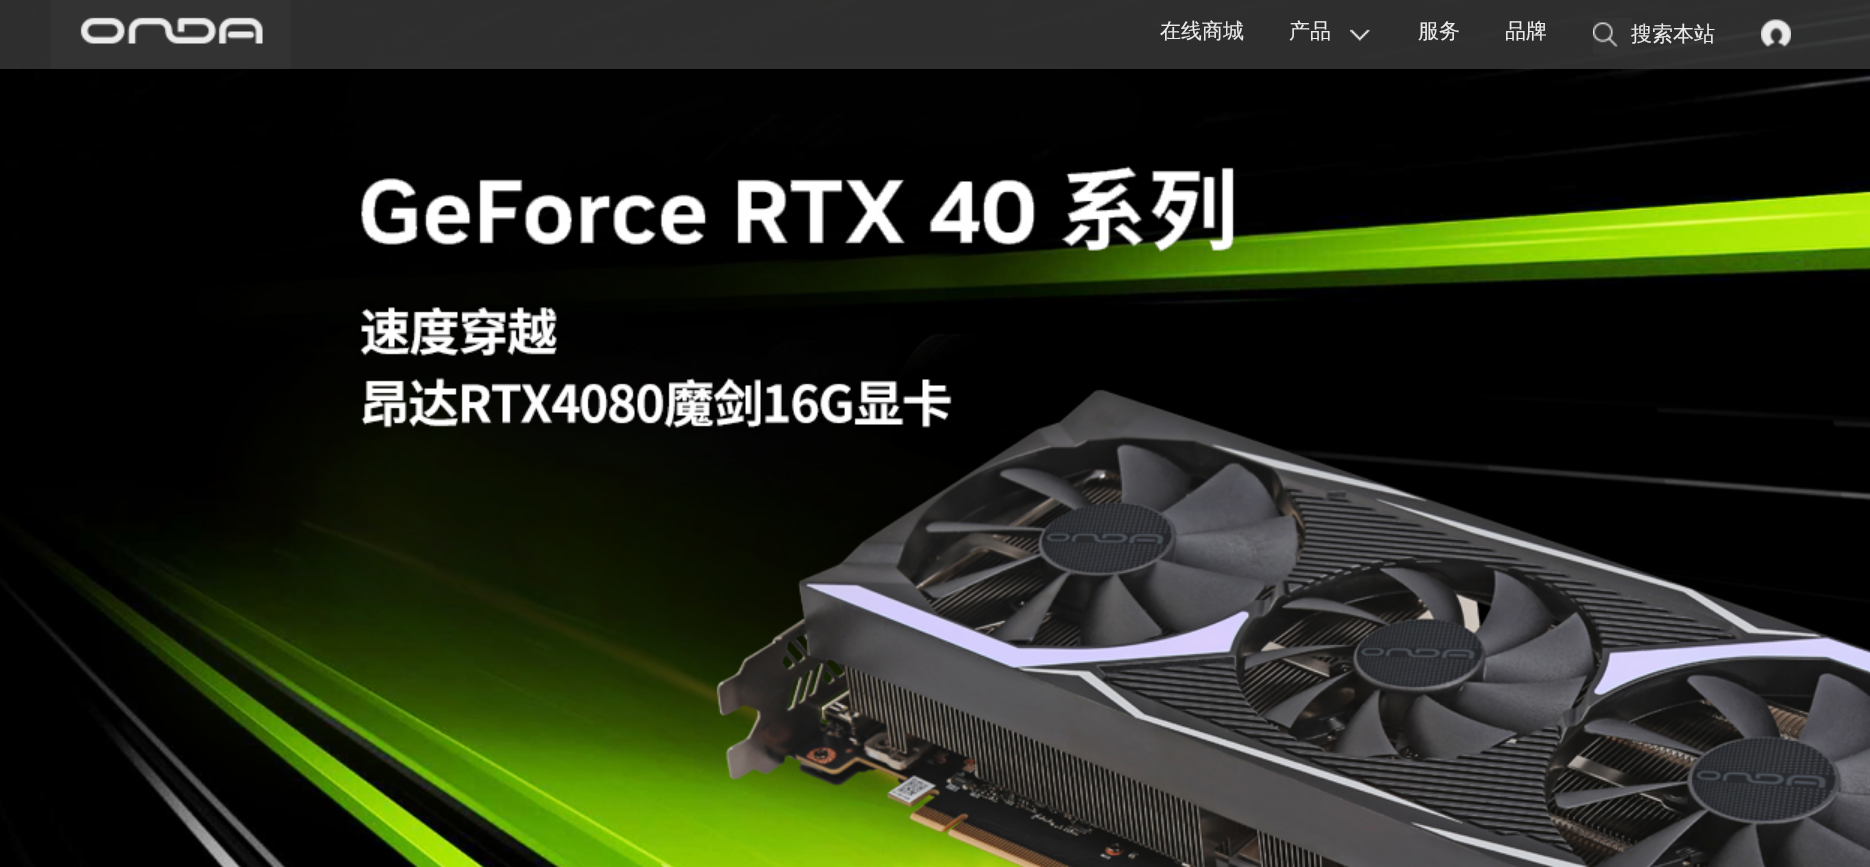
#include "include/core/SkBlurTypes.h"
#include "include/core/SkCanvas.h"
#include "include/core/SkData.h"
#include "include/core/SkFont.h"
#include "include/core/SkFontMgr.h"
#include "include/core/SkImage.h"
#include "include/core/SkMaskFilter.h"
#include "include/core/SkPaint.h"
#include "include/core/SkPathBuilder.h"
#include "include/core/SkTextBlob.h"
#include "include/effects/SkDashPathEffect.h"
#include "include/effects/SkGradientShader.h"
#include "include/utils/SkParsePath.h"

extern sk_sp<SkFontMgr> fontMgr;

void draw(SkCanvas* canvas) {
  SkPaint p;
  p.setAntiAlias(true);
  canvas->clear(SK_ColorWHITE);
  canvas->drawImageRect(SkImages::DeferredFromEncodedData(SkData::MakeFromFileName("images/1.png")), SkRect::MakeLTRB(0, 0, 1870, 867), SkSamplingOptions());
  p.setColor(SkColorSetARGB(230, 51, 51, 51));
  canvas->drawRect(SkRect::MakeLTRB(0, 0, 1870, 69), p);
  canvas->drawImageRect(SkImages::DeferredFromEncodedData(SkData::MakeFromFileName("images/2.png")), SkRect::MakeLTRB(51, 0, 291, 69), SkSamplingOptions());
  canvas->drawImageRect(SkImages::DeferredFromEncodedData(SkData::MakeFromFileName("images/3.png")), SkRect::MakeLTRB(1350, 29, 1370, 41), SkSamplingOptions());
  canvas->drawImageRect(SkImages::DeferredFromEncodedData(SkData::MakeFromFileName("images/4.png")), SkRect::MakeLTRB(1593, 18, 1632, 54), SkSamplingOptions());
  canvas->drawImageRect(SkImages::DeferredFromEncodedData(SkData::MakeFromFileName("images/5.png")), SkRect::MakeLTRB(1761, 19, 1791, 47), SkSamplingOptions());
  SkFont font1(fontMgr->matchFamilyStyle("WenQuanYi Zen Hei", SkFontStyle(500, SkFontStyle::kNormal_Width, SkFontStyle::kUpright_Slant)), 21);
  font1.setSubpixel(true);
  p.setColor(SkColorSetRGB(234, 234, 234));
  canvas->drawString("在线商城", 1160, 38, font1, p);
  canvas->drawString("产品", 1289, 38, font1, p);
  canvas->drawString("服务", 1418, 38, font1, p);
  canvas->drawString("品牌", 1505, 38, font1, p);
  canvas->drawString("搜索本站", 1631, 41, font1, p);
}
